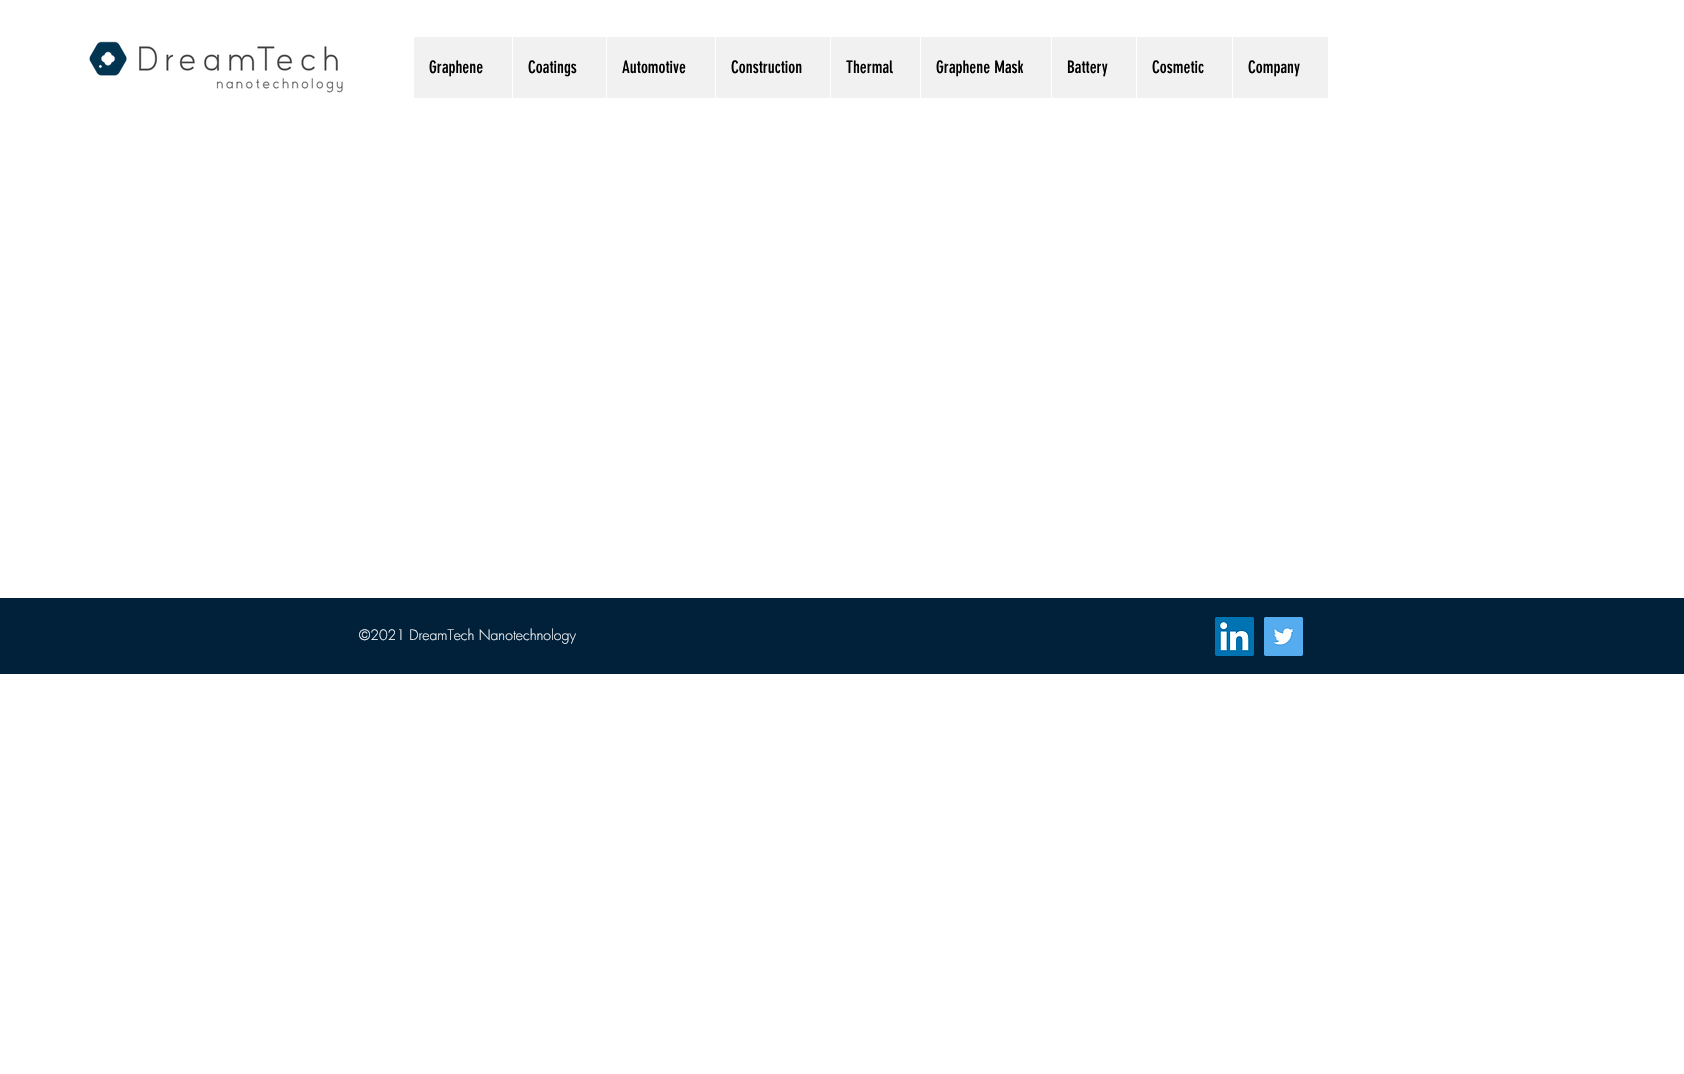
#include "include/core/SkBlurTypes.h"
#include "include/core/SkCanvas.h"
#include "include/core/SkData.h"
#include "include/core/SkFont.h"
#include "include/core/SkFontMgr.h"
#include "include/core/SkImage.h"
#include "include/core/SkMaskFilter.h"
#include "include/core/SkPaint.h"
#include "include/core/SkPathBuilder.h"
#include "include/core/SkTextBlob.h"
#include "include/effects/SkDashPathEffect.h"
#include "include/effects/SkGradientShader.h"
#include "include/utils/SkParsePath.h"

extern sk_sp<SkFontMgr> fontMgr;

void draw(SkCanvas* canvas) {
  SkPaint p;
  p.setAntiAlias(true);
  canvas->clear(SK_ColorWHITE);
  canvas->drawImageRect(SkImages::DeferredFromEncodedData(SkData::MakeFromFileName("images/1.png")), SkRect::MakeLTRB(89, 41, 343, 93), SkSamplingOptions());
  p.setColor(SkColorSetRGB(241, 241, 241));
  canvas->drawRect(SkRect::MakeLTRB(414, 37, 1328, 98), p);
  p.setColor(SK_ColorWHITE);
  canvas->drawRect(SkRect::MakeLTRB(512, 37, 513, 98), p);
  canvas->drawRect(SkRect::MakeLTRB(606, 37, 607, 98), p);
  canvas->drawRect(SkRect::MakeLTRB(715, 37, 716, 98), p);
  canvas->drawRect(SkRect::MakeLTRB(830, 37, 831, 98), p);
  canvas->drawRect(SkRect::MakeLTRB(920, 37, 921, 98), p);
  canvas->drawRect(SkRect::MakeLTRB(1051, 37, 1052, 98), p);
  canvas->drawRect(SkRect::MakeLTRB(1136, 37, 1137, 98), p);
  canvas->drawRect(SkRect::MakeLTRB(1232, 37, 1233, 98), p);
  p.setColor(SkColorSetRGB(1, 32, 58));
  canvas->drawRect(SkRect::MakeLTRB(0, 598, 1684, 674), p);
  canvas->drawImageRect(SkImages::DeferredFromEncodedData(SkData::MakeFromFileName("images/2.png")), SkRect::MakeLTRB(1215, 617, 1254, 656), SkSamplingOptions());
  canvas->drawImageRect(SkImages::DeferredFromEncodedData(SkData::MakeFromFileName("images/3.png")), SkRect::MakeLTRB(1264, 617, 1303, 656), SkSamplingOptions());
  SkFont font1(fontMgr->matchFamilyStyle("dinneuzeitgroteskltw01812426", SkFontStyle::Normal()), 17);
  font1.setSubpixel(true);
  p.setColor(SK_ColorBLACK);
  canvas->drawString("Graphene", 429, 73, font1, p);
  canvas->drawString("Coatings", 528, 73, font1, p);
  canvas->drawString("Automotive", 622, 73, font1, p);
  canvas->drawString("Construction", 731, 73, font1, p);
  canvas->drawString("Thermal", 846, 73, font1, p);
  canvas->drawString("Graphene Mask", 936, 73, font1, p);
  canvas->drawString("Battery", 1067, 73, font1, p);
  canvas->drawString("Cosmetic", 1152, 73, font1, p);
  canvas->drawString("Company", 1248, 73, font1, p);
  SkFont font2(fontMgr->matchFamilyStyle("futura", SkFontStyle(300, SkFontStyle::kNormal_Width, SkFontStyle::kUpright_Slant)), 14);
  font2.setSubpixel(true);
  p.setColor(SK_ColorWHITE);
  canvas->drawString("©2021 DreamTech Nanotechnology", 359, 640, font2, p);
}
